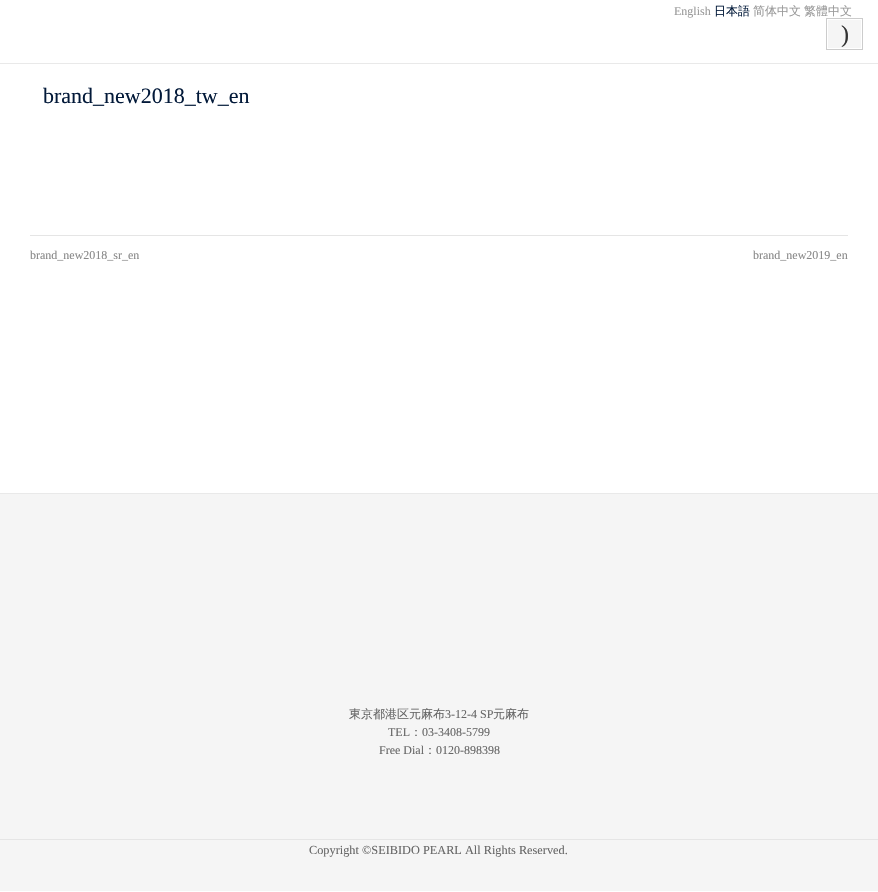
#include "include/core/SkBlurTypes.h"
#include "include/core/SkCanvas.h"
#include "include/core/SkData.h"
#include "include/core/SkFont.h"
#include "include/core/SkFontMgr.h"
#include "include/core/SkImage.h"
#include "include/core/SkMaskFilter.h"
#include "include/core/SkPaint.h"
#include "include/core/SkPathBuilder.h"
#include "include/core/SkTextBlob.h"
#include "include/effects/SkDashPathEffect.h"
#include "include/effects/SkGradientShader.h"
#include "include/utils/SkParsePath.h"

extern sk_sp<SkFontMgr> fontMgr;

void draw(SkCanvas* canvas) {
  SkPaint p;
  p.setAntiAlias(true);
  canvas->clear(SK_ColorWHITE);
  p.setColor(SkColorSetRGB(245, 245, 245));
  canvas->drawRect(SkRect::MakeLTRB(828, 20, 861, 48), p);
  p.setStyle(SkPaint::kStroke_Style);
  p.setStrokeWidth(1);
  p.setColor(SkColorSetRGB(204, 204, 204));
  canvas->drawRect(SkRect::MakeLTRB(826.5f, 18.5f, 862.5f, 49.5f), p);
  p.setStyle(SkPaint::kFill_Style);
  p.setColor(SkColorSetRGB(233, 233, 233));
  canvas->drawRect(SkRect::MakeLTRB(0, 63, 878, 64), p);
  p.setColor(SkColorSetRGB(229, 229, 229));
  canvas->drawRect(SkRect::MakeLTRB(30, 235, 848, 236), p);
  p.setColor(SkColorSetRGB(233, 233, 233));
  canvas->drawRect(SkRect::MakeLTRB(0, 493, 878, 494), p);
  p.setColor(SkColorSetRGB(245, 245, 245));
  canvas->drawRect(SkRect::MakeLTRB(0, 494, 878, 839), p);
  canvas->drawRect(SkRect::MakeLTRB(0, 840, 878, 891), p);
  p.setColor(SkColorSetRGB(229, 229, 229));
  canvas->drawRect(SkRect::MakeLTRB(0, 839, 878, 840), p);
  SkFont font1(fontMgr->matchFamilyStyle("Liberation Serif", SkFontStyle::Normal()), 12);
  font1.setSubpixel(true);
  p.setColor(SkColorSetRGB(153, 153, 153));
  canvas->drawString("English", 674, 15, font1, p);
  SkFont font2(fontMgr->matchFamilyStyle("WenQuanYi Zen Hei", SkFontStyle(500, SkFontStyle::kNormal_Width, SkFontStyle::kUpright_Slant)), 12);
  font2.setSubpixel(true);
  p.setColor(SkColorSetRGB(2, 25, 57));
  canvas->drawString("日本語", 714, 15, font2, p);
  p.setColor(SkColorSetRGB(153, 153, 153));
  canvas->drawString("简体中文", 753, 15, font2, p);
  canvas->drawString("繁體中文", 804, 15, font2, p);
  SkFont font3(fontMgr->matchFamilyStyle("Liberation Serif", SkFontStyle::Normal()), 24);
  font3.setSubpixel(true);
  p.setColor(SkColorSetRGB(51, 51, 51));
  canvas->drawString(")", 841, 42, font3, p);
  SkFont font4(fontMgr->matchFamilyStyle("Liberation Serif", SkFontStyle::Normal()), 22);
  font4.setSubpixel(true);
  p.setColor(SkColorSetRGB(2, 25, 57));
  canvas->drawString("brand_new2018_tw_en", 43, 103, font4, p);
  p.setColor(SkColorSetRGB(136, 136, 136));
  canvas->drawString("brand_new2018_sr_en", 30, 259, font1, p);
  canvas->drawString("brand_new2019_en", 753, 259, font1, p);
  p.setColor(SkColorSetRGB(102, 102, 102));
  canvas->drawString("東京都港区元麻布", 349, 718, font2, p);
  canvas->drawString("3-12-4 SP", 445, 718, font1, p);
  canvas->drawString("元麻布", 493, 718, font2, p);
  canvas->drawString("TEL", 388, 736, font1, p);
  canvas->drawString("：", 410, 736, font2, p);
  canvas->drawString("03-3408-5799", 422, 736, font1, p);
  canvas->drawString("Free Dial", 379, 754, font1, p);
  canvas->drawString("：", 424, 754, font2, p);
  canvas->drawString("0120-898398", 436, 754, font1, p);
  SkFont font5(fontMgr->matchFamilyStyle("Liberation Serif", SkFontStyle::Normal()), 12.3f);
  font5.setSubpixel(true);
  canvas->drawString("Copyright ©SEIBIDO PEARL All Rights Reserved.", 309, 854, font5, p);
}
